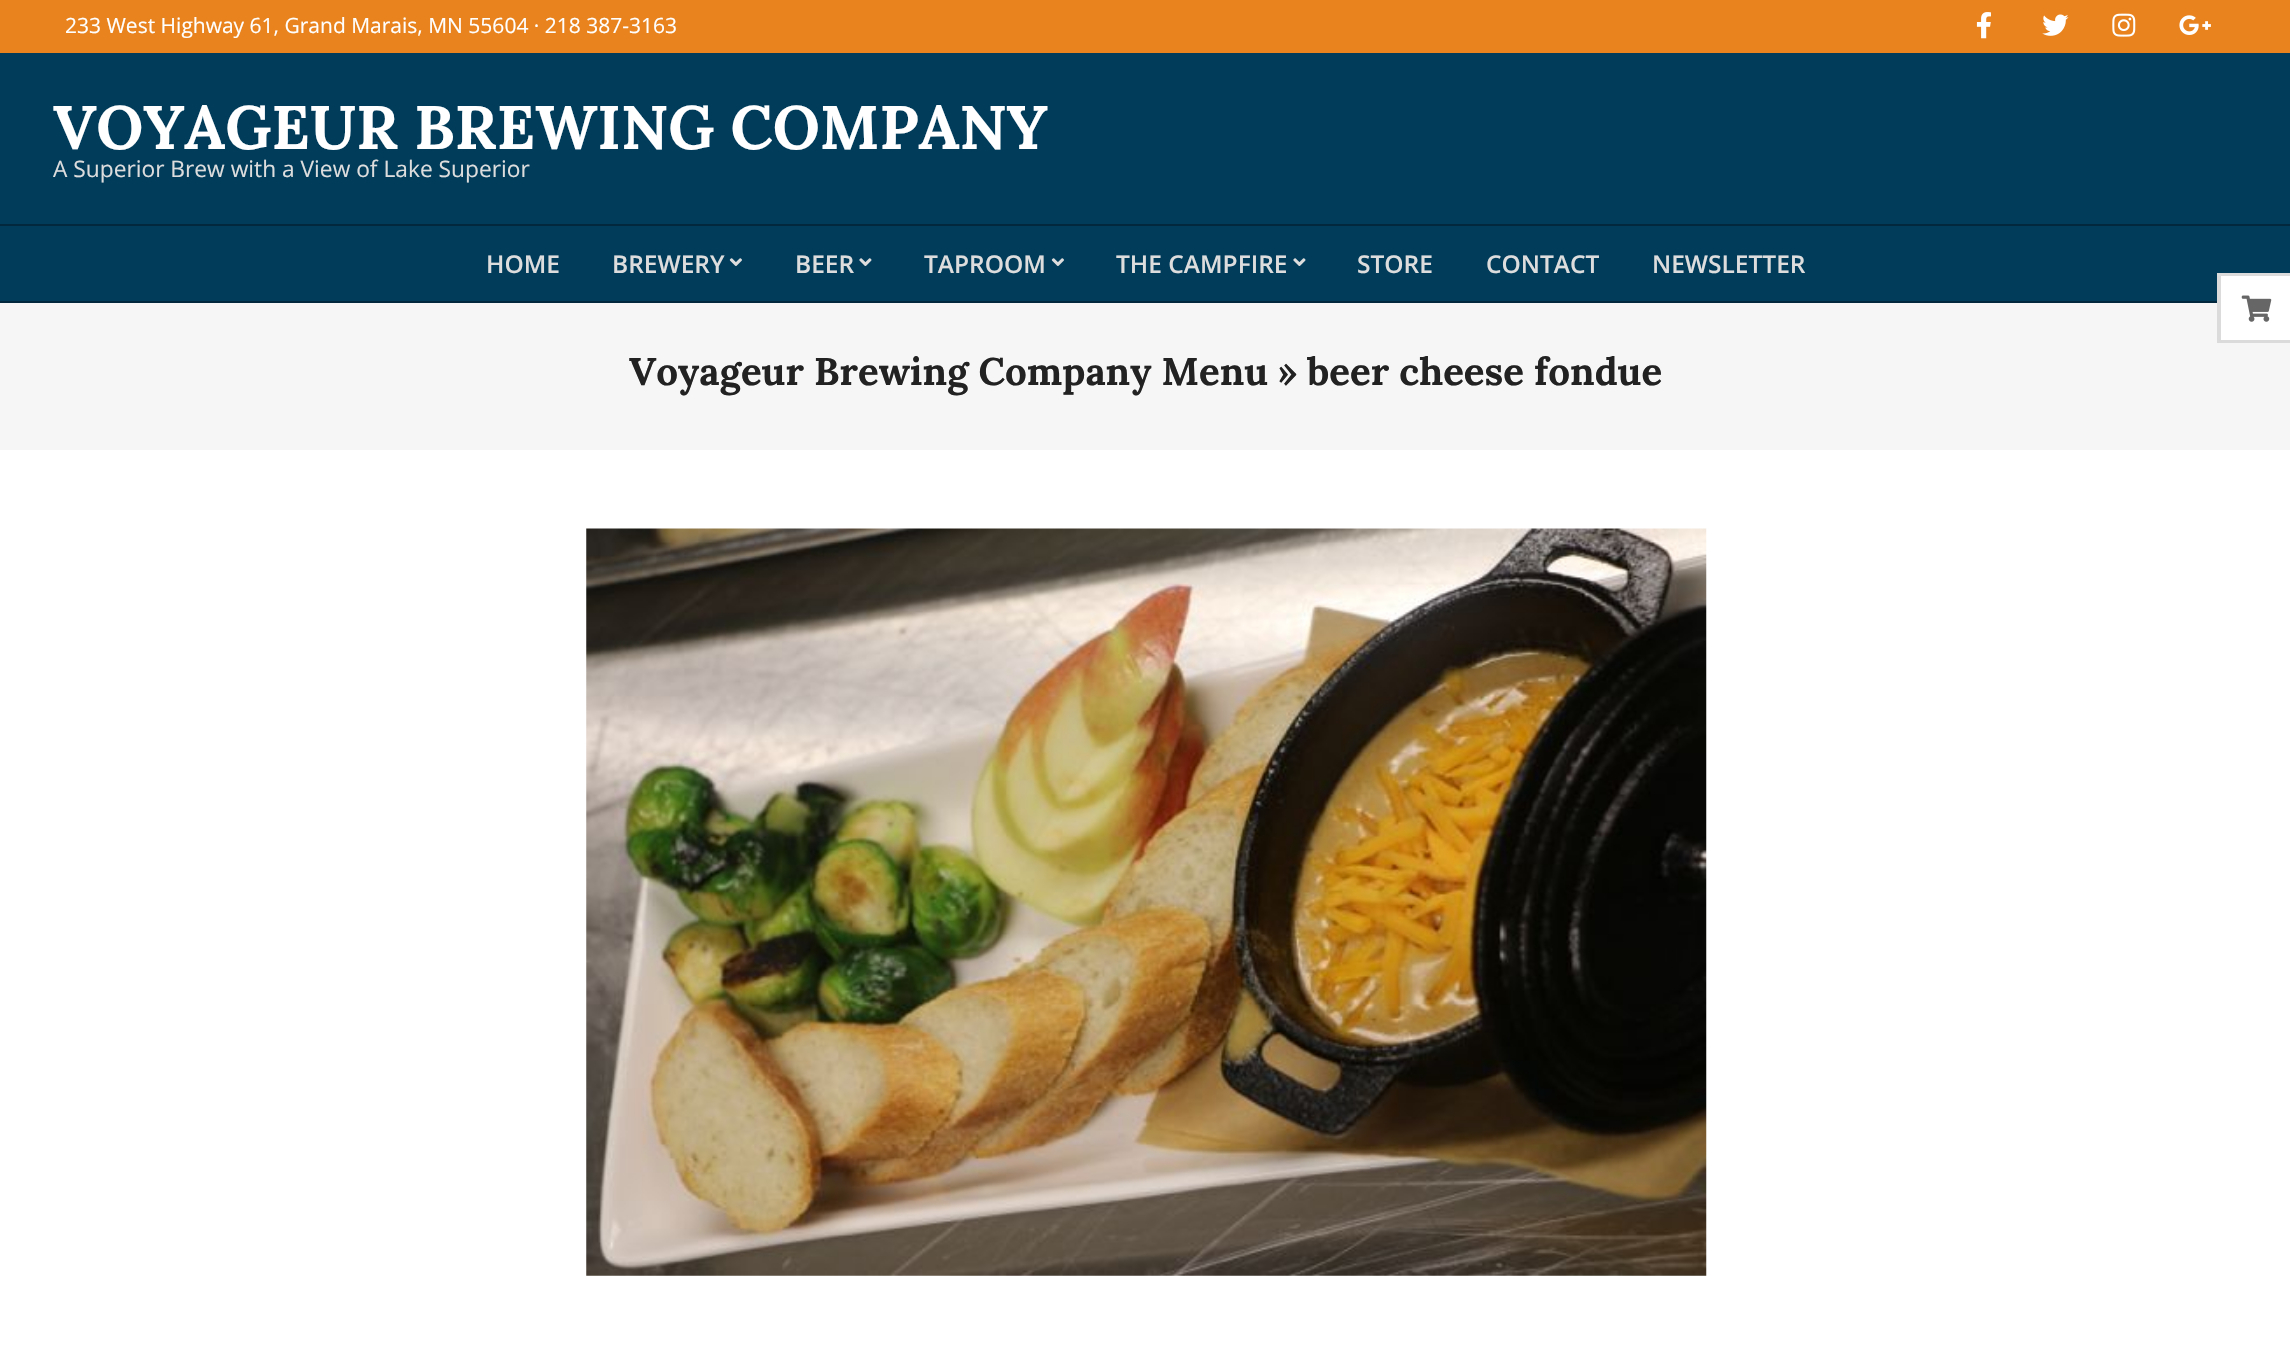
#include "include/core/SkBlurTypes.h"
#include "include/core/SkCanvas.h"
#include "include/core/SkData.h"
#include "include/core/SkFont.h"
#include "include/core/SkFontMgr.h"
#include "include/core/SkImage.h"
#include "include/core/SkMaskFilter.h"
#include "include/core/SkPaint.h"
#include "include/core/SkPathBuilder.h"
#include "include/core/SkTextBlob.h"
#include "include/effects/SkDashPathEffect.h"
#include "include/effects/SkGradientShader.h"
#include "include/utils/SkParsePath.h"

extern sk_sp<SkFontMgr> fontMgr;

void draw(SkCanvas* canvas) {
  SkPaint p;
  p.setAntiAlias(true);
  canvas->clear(SkColorSetRGB(1, 60, 91));
  p.setColor(SkColorSetRGB(232, 131, 30));
  canvas->drawRect(SkRect::MakeLTRB(0, 0, 2290, 53), p);
  canvas->drawImageRect(SkImages::DeferredFromEncodedData(SkData::MakeFromFileName("images/1.png")), SkRect::MakeLTRB(1976, 12, 1991, 39), SkSamplingOptions());
  canvas->drawImageRect(SkImages::DeferredFromEncodedData(SkData::MakeFromFileName("images/2.png")), SkRect::MakeLTRB(2042, 14, 2069, 36), SkSamplingOptions());
  canvas->drawImageRect(SkImages::DeferredFromEncodedData(SkData::MakeFromFileName("images/3.png")), SkRect::MakeLTRB(2112, 13, 2136, 37), SkSamplingOptions());
  canvas->drawImageRect(SkImages::DeferredFromEncodedData(SkData::MakeFromFileName("images/4.png")), SkRect::MakeLTRB(2179, 15, 2211, 35), SkSamplingOptions());
  p.setColor(SkColorSetRGB(1, 40, 61));
  canvas->drawRect(SkRect::MakeLTRB(0, 224, 2290, 226), p);
  canvas->drawRect(SkRect::MakeLTRB(0, 301, 2217, 303), p);
  canvas->drawImageRect(SkImages::DeferredFromEncodedData(SkData::MakeFromFileName("images/5.png")), SkRect::MakeLTRB(729, 258, 742, 266), SkSamplingOptions());
  canvas->drawImageRect(SkImages::DeferredFromEncodedData(SkData::MakeFromFileName("images/6.png")), SkRect::MakeLTRB(859, 258, 872, 266), SkSamplingOptions());
  canvas->drawImageRect(SkImages::DeferredFromEncodedData(SkData::MakeFromFileName("images/5.png")), SkRect::MakeLTRB(1051, 258, 1064, 266), SkSamplingOptions());
  canvas->drawImageRect(SkImages::DeferredFromEncodedData(SkData::MakeFromFileName("images/6.png")), SkRect::MakeLTRB(1293, 258, 1306, 266), SkSamplingOptions());
  p.setColor(SK_ColorWHITE);
  canvas->drawRect(SkRect::MakeLTRB(0, 450, 2290, 1353), p);
  p.setColor(SkColorSetRGB(246, 246, 246));
  canvas->drawRect(SkRect::MakeLTRB(0, 303, 2290, 450), p);
  canvas->drawImageRect(SkImages::DeferredFromEncodedData(SkData::MakeFromFileName("images/7.png")), SkRect::MakeLTRB(586, 528, 1707, 1276), SkSamplingOptions());
  p.setColor(SK_ColorWHITE);
  canvas->drawRect(SkRect::MakeLTRB(2217, 273, 2290, 343), p);
  p.setColor(SkColorSetRGB(219, 219, 219));
  canvas->drawPath(SkPathBuilder().moveTo(2217, 273).lineTo(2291, 273).lineTo(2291, 276).lineTo(2221, 276).close().detach(), p);
  canvas->drawPath(SkPathBuilder().moveTo(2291, 343).lineTo(2217, 343).lineTo(2221, 340).lineTo(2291, 340).close().detach(), p);
  p.setColor(SkColorSetARGB(36, 0, 0, 0));
  canvas->drawPath(SkPathBuilder().moveTo(2217, 343).lineTo(2217, 273).lineTo(2221, 276).lineTo(2221, 340).close().detach(), p);
  canvas->drawImageRect(SkImages::DeferredFromEncodedData(SkData::MakeFromFileName("images/8.png")), SkRect::MakeLTRB(2241, 295, 2272, 322), SkSamplingOptions());
  SkFont font1(fontMgr->matchFamilyStyle("Open Sans", SkFontStyle::Normal()), 21);
  font1.setSubpixel(true);
  p.setColor(SK_ColorWHITE);
  canvas->drawString("233 West Highway 61, Grand Marais, MN 55604 · 218 387-3163", 65, 33, font1, p);
  SkFont font2(fontMgr->matchFamilyStyle("Lora", SkFontStyle::Bold()), 61.25f);
  font2.setSubpixel(true);
  canvas->drawString("VOYAGEUR BREWING COMPANY", 53, 149, font2, p);
  SkFont font3(fontMgr->matchFamilyStyle("Open Sans", SkFontStyle::Normal()), 22.75f);
  font3.setSubpixel(true);
  p.setColor(SkColorSetRGB(221, 221, 221));
  canvas->drawString("A Superior Brew with a View of Lake Superior", 53, 177, font3, p);
  SkFont font4(fontMgr->matchFamilyStyle("Open Sans", SkFontStyle(600, SkFontStyle::kNormal_Width, SkFontStyle::kUpright_Slant)), 24.5f);
  font4.setSubpixel(true);
  canvas->drawString("HOME", 486, 273, font4, p);
  canvas->drawString("BREWERY", 612, 273, font4, p);
  canvas->drawString("BEER", 795, 273, font4, p);
  canvas->drawString("TAPROOM", 924, 273, font4, p);
  canvas->drawString("THE CAMPFIRE", 1116, 273, font4, p);
  canvas->drawString("STORE", 1357, 273, font4, p);
  canvas->drawString("CONTACT", 1486, 273, font4, p);
  canvas->drawString("NEWSLETTER", 1652, 273, font4, p);
  SkFont font5(fontMgr->matchFamilyStyle("Lora", SkFontStyle::Bold()), 38.5f);
  font5.setSubpixel(true);
  p.setColor(SkColorSetRGB(34, 34, 34));
  canvas->drawString("Voyageur Brewing Company Menu » beer cheese fondue", 629, 385, font5, p);
}
